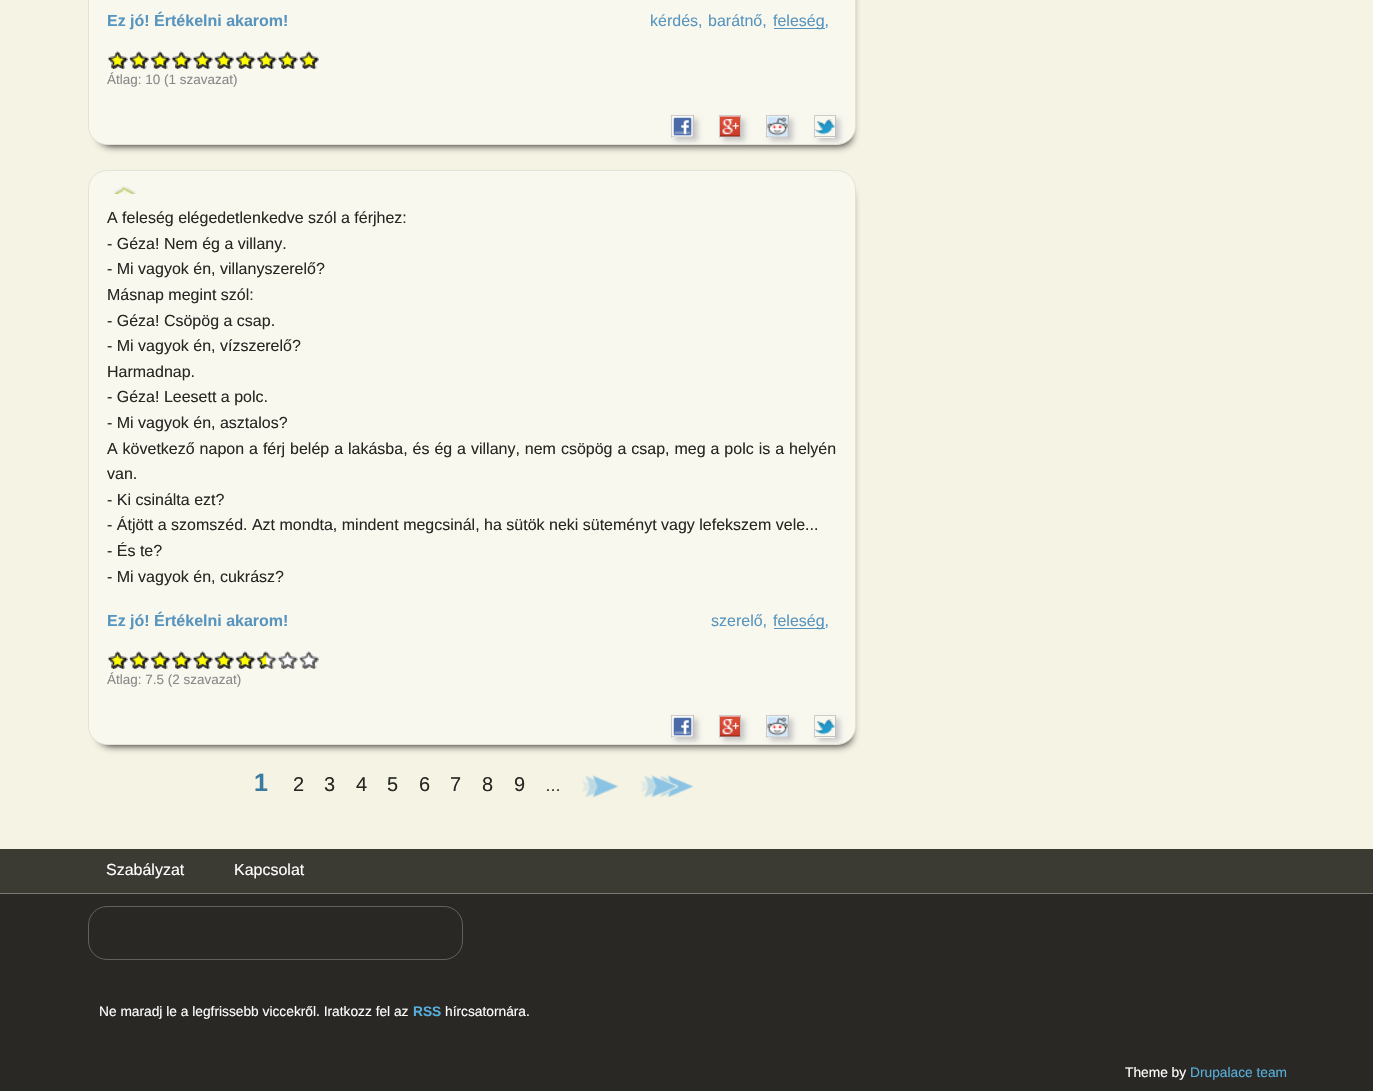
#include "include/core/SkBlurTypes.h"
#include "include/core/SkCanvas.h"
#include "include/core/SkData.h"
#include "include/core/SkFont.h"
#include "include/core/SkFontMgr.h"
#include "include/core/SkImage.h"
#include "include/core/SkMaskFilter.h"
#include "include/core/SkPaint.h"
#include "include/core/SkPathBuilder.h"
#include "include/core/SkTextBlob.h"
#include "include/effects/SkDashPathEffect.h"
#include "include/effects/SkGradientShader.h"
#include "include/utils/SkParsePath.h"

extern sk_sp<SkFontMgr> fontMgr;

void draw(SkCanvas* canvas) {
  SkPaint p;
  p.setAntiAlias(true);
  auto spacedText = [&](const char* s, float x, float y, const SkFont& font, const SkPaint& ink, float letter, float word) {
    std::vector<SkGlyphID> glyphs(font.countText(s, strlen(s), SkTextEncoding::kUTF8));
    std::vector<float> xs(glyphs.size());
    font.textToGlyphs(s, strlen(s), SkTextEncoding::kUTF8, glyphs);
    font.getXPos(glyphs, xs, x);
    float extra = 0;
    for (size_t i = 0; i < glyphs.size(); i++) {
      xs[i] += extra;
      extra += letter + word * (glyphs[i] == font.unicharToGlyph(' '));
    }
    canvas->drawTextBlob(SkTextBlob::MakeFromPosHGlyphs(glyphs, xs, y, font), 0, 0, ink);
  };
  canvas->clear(SkColorSetRGB(41, 40, 37));
  p.setColor(SkColorSetRGB(245, 243, 227));
  canvas->drawRect(SkRect::MakeLTRB(0, 0, 1373, 849), p);
  p.setColor(SK_ColorBLACK);
  p.setMaskFilter(SkMaskFilter::MakeBlur(kNormal_SkBlurStyle, 4.5f));
  canvas->drawRoundRect(SkRect::MakeLTRB(100, -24, 851, 145), 10, 10, p);
  p.setMaskFilter(nullptr);
  p.setColor(SkColorSetRGB(249, 248, 239));
  canvas->drawRoundRect(SkRect::MakeLTRB(88.5f, -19.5f, 855.5f, 144.5f), 18.5f, 18.5f, p);
  p.setStyle(SkPaint::kStroke_Style);
  p.setStrokeWidth(1);
  p.setColor(SkColorSetRGB(227, 226, 216));
  canvas->drawRoundRect(SkRect::MakeLTRB(88.5f, -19.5f, 855.5f, 144.5f), 18.5f, 18.5f, p);
  p.setStyle(SkPaint::kFill_Style);
  p.setColor(SkColorSetRGB(88, 149, 190));
  canvas->drawRect(SkRect::MakeLTRB(774, 28, 825, 29), p);
  canvas->drawImageRect(SkImages::DeferredFromEncodedData(SkData::MakeFromFileName("images/1.png")), SkRect::MakeLTRB(107, 51, 128, 69), SkSamplingOptions());
  canvas->drawImageRect(SkImages::DeferredFromEncodedData(SkData::MakeFromFileName("images/2.png")), SkRect::MakeLTRB(107, 51, 128, 69), SkSamplingOptions());
  canvas->drawImageRect(SkImages::DeferredFromEncodedData(SkData::MakeFromFileName("images/3.png")), SkRect::MakeLTRB(128, 51, 149, 69), SkSamplingOptions());
  canvas->drawImageRect(SkImages::DeferredFromEncodedData(SkData::MakeFromFileName("images/4.png")), SkRect::MakeLTRB(129, 51, 149, 69), SkSamplingOptions());
  canvas->drawImageRect(SkImages::DeferredFromEncodedData(SkData::MakeFromFileName("images/5.png")), SkRect::MakeLTRB(150, 51, 171, 69), SkSamplingOptions());
  canvas->drawImageRect(SkImages::DeferredFromEncodedData(SkData::MakeFromFileName("images/6.png")), SkRect::MakeLTRB(150, 51, 171, 69), SkSamplingOptions());
  canvas->drawImageRect(SkImages::DeferredFromEncodedData(SkData::MakeFromFileName("images/7.png")), SkRect::MakeLTRB(171, 51, 192, 69), SkSamplingOptions());
  canvas->drawImageRect(SkImages::DeferredFromEncodedData(SkData::MakeFromFileName("images/8.png")), SkRect::MakeLTRB(171, 51, 192, 69), SkSamplingOptions());
  canvas->drawImageRect(SkImages::DeferredFromEncodedData(SkData::MakeFromFileName("images/1.png")), SkRect::MakeLTRB(192, 51, 213, 69), SkSamplingOptions());
  canvas->drawImageRect(SkImages::DeferredFromEncodedData(SkData::MakeFromFileName("images/2.png")), SkRect::MakeLTRB(192, 51, 213, 69), SkSamplingOptions());
  canvas->drawImageRect(SkImages::DeferredFromEncodedData(SkData::MakeFromFileName("images/3.png")), SkRect::MakeLTRB(213, 51, 234, 69), SkSamplingOptions());
  canvas->drawImageRect(SkImages::DeferredFromEncodedData(SkData::MakeFromFileName("images/4.png")), SkRect::MakeLTRB(214, 51, 234, 69), SkSamplingOptions());
  canvas->drawImageRect(SkImages::DeferredFromEncodedData(SkData::MakeFromFileName("images/5.png")), SkRect::MakeLTRB(235, 51, 256, 69), SkSamplingOptions());
  canvas->drawImageRect(SkImages::DeferredFromEncodedData(SkData::MakeFromFileName("images/6.png")), SkRect::MakeLTRB(235, 51, 256, 69), SkSamplingOptions());
  canvas->drawImageRect(SkImages::DeferredFromEncodedData(SkData::MakeFromFileName("images/7.png")), SkRect::MakeLTRB(256, 51, 277, 69), SkSamplingOptions());
  canvas->drawImageRect(SkImages::DeferredFromEncodedData(SkData::MakeFromFileName("images/8.png")), SkRect::MakeLTRB(256, 51, 277, 69), SkSamplingOptions());
  canvas->drawImageRect(SkImages::DeferredFromEncodedData(SkData::MakeFromFileName("images/1.png")), SkRect::MakeLTRB(277, 51, 298, 69), SkSamplingOptions());
  canvas->drawImageRect(SkImages::DeferredFromEncodedData(SkData::MakeFromFileName("images/2.png")), SkRect::MakeLTRB(277, 51, 298, 69), SkSamplingOptions());
  canvas->drawImageRect(SkImages::DeferredFromEncodedData(SkData::MakeFromFileName("images/3.png")), SkRect::MakeLTRB(298, 51, 319, 69), SkSamplingOptions());
  canvas->drawImageRect(SkImages::DeferredFromEncodedData(SkData::MakeFromFileName("images/4.png")), SkRect::MakeLTRB(299, 51, 319, 69), SkSamplingOptions());
  p.setColor(SkColorSetRGB(201, 201, 201));
  p.setMaskFilter(SkMaskFilter::MakeBlur(kNormal_SkBlurStyle, 2.5f));
  canvas->drawRect(SkRect::MakeLTRB(675, 119, 698, 141), p);
  p.setMaskFilter(nullptr);
  p.setColor(SkColorSetRGB(204, 204, 204));
  canvas->drawRect(SkRect::MakeLTRB(671, 115, 694, 116), p);
  p.setColor(SkColorSetRGB(193, 193, 193));
  canvas->drawRect(SkRect::MakeLTRB(693, 115, 694, 138), p);
  canvas->drawRect(SkRect::MakeLTRB(671, 136, 694, 137), p);
  p.setColor(SkColorSetRGB(204, 204, 204));
  canvas->drawRect(SkRect::MakeLTRB(671, 115, 672, 138), p);
  canvas->drawImageRect(SkImages::DeferredFromEncodedData(SkData::MakeFromFileName("images/9.png")), SkRect::MakeLTRB(672, 116, 693, 137), SkSamplingOptions());
  p.setColor(SkColorSetRGB(201, 201, 201));
  p.setMaskFilter(SkMaskFilter::MakeBlur(kNormal_SkBlurStyle, 2.5f));
  canvas->drawRect(SkRect::MakeLTRB(723, 119, 745, 141), p);
  p.setMaskFilter(nullptr);
  p.setColor(SkColorSetRGB(204, 204, 204));
  canvas->drawRect(SkRect::MakeLTRB(719, 115, 741, 116), p);
  p.setColor(SkColorSetRGB(193, 193, 193));
  canvas->drawRect(SkRect::MakeLTRB(740, 115, 741, 138), p);
  canvas->drawRect(SkRect::MakeLTRB(719, 136, 741, 137), p);
  p.setColor(SkColorSetRGB(204, 204, 204));
  canvas->drawRect(SkRect::MakeLTRB(719, 115, 720, 138), p);
  canvas->drawImageRect(SkImages::DeferredFromEncodedData(SkData::MakeFromFileName("images/10.png")), SkRect::MakeLTRB(720, 116, 740, 137), SkSamplingOptions());
  p.setColor(SkColorSetRGB(201, 201, 201));
  p.setMaskFilter(SkMaskFilter::MakeBlur(kNormal_SkBlurStyle, 2.5f));
  canvas->drawRect(SkRect::MakeLTRB(770, 119, 793, 141), p);
  p.setMaskFilter(nullptr);
  p.setColor(SkColorSetRGB(204, 204, 204));
  canvas->drawRect(SkRect::MakeLTRB(766, 115, 789, 116), p);
  p.setColor(SkColorSetRGB(193, 193, 193));
  canvas->drawRect(SkRect::MakeLTRB(788, 115, 789, 138), p);
  canvas->drawRect(SkRect::MakeLTRB(766, 136, 789, 137), p);
  p.setColor(SkColorSetRGB(204, 204, 204));
  canvas->drawRect(SkRect::MakeLTRB(766, 115, 767, 138), p);
  canvas->drawImageRect(SkImages::DeferredFromEncodedData(SkData::MakeFromFileName("images/11.png")), SkRect::MakeLTRB(767, 116, 788, 137), SkSamplingOptions());
  canvas->save();
  canvas->clipPath(SkPathBuilder(SkPathFillType::kEvenOdd).moveTo(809, 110).lineTo(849, 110).lineTo(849, 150).lineTo(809, 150).close().moveTo(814, 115).lineTo(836, 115).lineTo(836, 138).lineTo(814, 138).close().detach(), true);
  p.setColor(SkColorSetRGB(201, 201, 201));
  p.setMaskFilter(SkMaskFilter::MakeBlur(kNormal_SkBlurStyle, 2.5f));
  canvas->drawRect(SkRect::MakeLTRB(818, 119, 840, 141), p);
  p.setMaskFilter(nullptr);
  canvas->restore();
  p.setColor(SkColorSetRGB(204, 204, 204));
  canvas->drawRect(SkRect::MakeLTRB(814, 115, 836, 116), p);
  p.setColor(SkColorSetRGB(193, 193, 193));
  canvas->drawRect(SkRect::MakeLTRB(835, 115, 836, 138), p);
  canvas->drawRect(SkRect::MakeLTRB(814, 136, 836, 137), p);
  p.setColor(SkColorSetRGB(204, 204, 204));
  canvas->drawRect(SkRect::MakeLTRB(814, 115, 815, 138), p);
  canvas->drawImageRect(SkImages::DeferredFromEncodedData(SkData::MakeFromFileName("images/12.png")), SkRect::MakeLTRB(815, 119, 835, 135), SkSamplingOptions());
  p.setColor(SK_ColorBLACK);
  p.setMaskFilter(SkMaskFilter::MakeBlur(kNormal_SkBlurStyle, 4.5f));
  canvas->drawRoundRect(SkRect::MakeLTRB(100, 188, 851, 745), 10, 10, p);
  p.setMaskFilter(nullptr);
  p.setColor(SkColorSetRGB(249, 248, 239));
  canvas->drawRoundRect(SkRect::MakeLTRB(88.5f, 170.5f, 855.5f, 744.5f), 18.5f, 18.5f, p);
  p.setStyle(SkPaint::kStroke_Style);
  p.setColor(SkColorSetRGB(227, 226, 216));
  canvas->drawRoundRect(SkRect::MakeLTRB(88.5f, 170.5f, 855.5f, 744.5f), 18.5f, 18.5f, p);
  canvas->drawImageRect(SkImages::DeferredFromEncodedData(SkData::MakeFromFileName("images/13.png")), SkRect::MakeLTRB(113, 186, 137, 194), SkSamplingOptions());
  p.setStyle(SkPaint::kFill_Style);
  p.setColor(SkColorSetRGB(88, 149, 190));
  canvas->drawRect(SkRect::MakeLTRB(774, 628, 825, 629), p);
  canvas->drawImageRect(SkImages::DeferredFromEncodedData(SkData::MakeFromFileName("images/1.png")), SkRect::MakeLTRB(107, 651, 128, 669), SkSamplingOptions());
  canvas->drawImageRect(SkImages::DeferredFromEncodedData(SkData::MakeFromFileName("images/2.png")), SkRect::MakeLTRB(107, 651, 128, 669), SkSamplingOptions());
  canvas->drawImageRect(SkImages::DeferredFromEncodedData(SkData::MakeFromFileName("images/3.png")), SkRect::MakeLTRB(128, 651, 149, 669), SkSamplingOptions());
  canvas->drawImageRect(SkImages::DeferredFromEncodedData(SkData::MakeFromFileName("images/4.png")), SkRect::MakeLTRB(129, 651, 149, 669), SkSamplingOptions());
  canvas->drawImageRect(SkImages::DeferredFromEncodedData(SkData::MakeFromFileName("images/5.png")), SkRect::MakeLTRB(150, 651, 171, 669), SkSamplingOptions());
  canvas->drawImageRect(SkImages::DeferredFromEncodedData(SkData::MakeFromFileName("images/6.png")), SkRect::MakeLTRB(150, 651, 171, 669), SkSamplingOptions());
  canvas->drawImageRect(SkImages::DeferredFromEncodedData(SkData::MakeFromFileName("images/7.png")), SkRect::MakeLTRB(171, 651, 192, 669), SkSamplingOptions());
  canvas->drawImageRect(SkImages::DeferredFromEncodedData(SkData::MakeFromFileName("images/8.png")), SkRect::MakeLTRB(171, 651, 192, 669), SkSamplingOptions());
  canvas->drawImageRect(SkImages::DeferredFromEncodedData(SkData::MakeFromFileName("images/1.png")), SkRect::MakeLTRB(192, 651, 213, 669), SkSamplingOptions());
  canvas->drawImageRect(SkImages::DeferredFromEncodedData(SkData::MakeFromFileName("images/2.png")), SkRect::MakeLTRB(192, 651, 213, 669), SkSamplingOptions());
  canvas->drawImageRect(SkImages::DeferredFromEncodedData(SkData::MakeFromFileName("images/3.png")), SkRect::MakeLTRB(213, 651, 234, 669), SkSamplingOptions());
  canvas->drawImageRect(SkImages::DeferredFromEncodedData(SkData::MakeFromFileName("images/4.png")), SkRect::MakeLTRB(214, 651, 234, 669), SkSamplingOptions());
  canvas->drawImageRect(SkImages::DeferredFromEncodedData(SkData::MakeFromFileName("images/5.png")), SkRect::MakeLTRB(235, 651, 256, 669), SkSamplingOptions());
  canvas->drawImageRect(SkImages::DeferredFromEncodedData(SkData::MakeFromFileName("images/6.png")), SkRect::MakeLTRB(235, 651, 256, 669), SkSamplingOptions());
  canvas->drawImageRect(SkImages::DeferredFromEncodedData(SkData::MakeFromFileName("images/7.png")), SkRect::MakeLTRB(256, 651, 277, 669), SkSamplingOptions());
  canvas->drawImageRect(SkImages::DeferredFromEncodedData(SkData::MakeFromFileName("images/14.png")), SkRect::MakeLTRB(256, 651, 267, 669), SkSamplingOptions());
  canvas->drawImageRect(SkImages::DeferredFromEncodedData(SkData::MakeFromFileName("images/1.png")), SkRect::MakeLTRB(277, 651, 298, 669), SkSamplingOptions());
  canvas->drawImageRect(SkImages::DeferredFromEncodedData(SkData::MakeFromFileName("images/15.png")), SkRect::MakeLTRB(278, 651, 298, 669), SkSamplingOptions());
  canvas->drawImageRect(SkImages::DeferredFromEncodedData(SkData::MakeFromFileName("images/3.png")), SkRect::MakeLTRB(298, 651, 319, 669), SkSamplingOptions());
  canvas->drawImageRect(SkImages::DeferredFromEncodedData(SkData::MakeFromFileName("images/16.png")), SkRect::MakeLTRB(299, 651, 319, 669), SkSamplingOptions());
  p.setColor(SkColorSetRGB(201, 201, 201));
  p.setMaskFilter(SkMaskFilter::MakeBlur(kNormal_SkBlurStyle, 2.5f));
  canvas->drawRect(SkRect::MakeLTRB(675, 719, 698, 741), p);
  p.setMaskFilter(nullptr);
  p.setColor(SkColorSetRGB(204, 204, 204));
  canvas->drawRect(SkRect::MakeLTRB(671, 715, 694, 716), p);
  p.setColor(SkColorSetRGB(193, 193, 193));
  canvas->drawRect(SkRect::MakeLTRB(693, 715, 694, 738), p);
  canvas->drawRect(SkRect::MakeLTRB(671, 736, 694, 737), p);
  p.setColor(SkColorSetRGB(204, 204, 204));
  canvas->drawRect(SkRect::MakeLTRB(671, 715, 672, 738), p);
  canvas->drawImageRect(SkImages::DeferredFromEncodedData(SkData::MakeFromFileName("images/9.png")), SkRect::MakeLTRB(672, 716, 693, 737), SkSamplingOptions());
  p.setColor(SkColorSetRGB(201, 201, 201));
  p.setMaskFilter(SkMaskFilter::MakeBlur(kNormal_SkBlurStyle, 2.5f));
  canvas->drawRect(SkRect::MakeLTRB(723, 719, 745, 741), p);
  p.setMaskFilter(nullptr);
  p.setColor(SkColorSetRGB(204, 204, 204));
  canvas->drawRect(SkRect::MakeLTRB(719, 715, 741, 716), p);
  p.setColor(SkColorSetRGB(193, 193, 193));
  canvas->drawRect(SkRect::MakeLTRB(740, 715, 741, 738), p);
  canvas->drawRect(SkRect::MakeLTRB(719, 736, 741, 737), p);
  p.setColor(SkColorSetRGB(204, 204, 204));
  canvas->drawRect(SkRect::MakeLTRB(719, 715, 720, 738), p);
  canvas->drawImageRect(SkImages::DeferredFromEncodedData(SkData::MakeFromFileName("images/10.png")), SkRect::MakeLTRB(720, 716, 740, 737), SkSamplingOptions());
  p.setColor(SkColorSetRGB(201, 201, 201));
  p.setMaskFilter(SkMaskFilter::MakeBlur(kNormal_SkBlurStyle, 2.5f));
  canvas->drawRect(SkRect::MakeLTRB(770, 719, 793, 741), p);
  p.setMaskFilter(nullptr);
  p.setColor(SkColorSetRGB(204, 204, 204));
  canvas->drawRect(SkRect::MakeLTRB(766, 715, 789, 716), p);
  p.setColor(SkColorSetRGB(193, 193, 193));
  canvas->drawRect(SkRect::MakeLTRB(788, 715, 789, 738), p);
  canvas->drawRect(SkRect::MakeLTRB(766, 736, 789, 737), p);
  p.setColor(SkColorSetRGB(204, 204, 204));
  canvas->drawRect(SkRect::MakeLTRB(766, 715, 767, 738), p);
  canvas->drawImageRect(SkImages::DeferredFromEncodedData(SkData::MakeFromFileName("images/11.png")), SkRect::MakeLTRB(767, 716, 788, 737), SkSamplingOptions());
  canvas->save();
  canvas->clipPath(SkPathBuilder(SkPathFillType::kEvenOdd).moveTo(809, 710).lineTo(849, 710).lineTo(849, 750).lineTo(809, 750).close().moveTo(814, 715).lineTo(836, 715).lineTo(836, 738).lineTo(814, 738).close().detach(), true);
  p.setColor(SkColorSetRGB(201, 201, 201));
  p.setMaskFilter(SkMaskFilter::MakeBlur(kNormal_SkBlurStyle, 2.5f));
  canvas->drawRect(SkRect::MakeLTRB(818, 719, 840, 741), p);
  p.setMaskFilter(nullptr);
  canvas->restore();
  p.setColor(SkColorSetRGB(204, 204, 204));
  canvas->drawRect(SkRect::MakeLTRB(814, 715, 836, 716), p);
  p.setColor(SkColorSetRGB(193, 193, 193));
  canvas->drawRect(SkRect::MakeLTRB(835, 715, 836, 738), p);
  canvas->drawRect(SkRect::MakeLTRB(814, 736, 836, 737), p);
  p.setColor(SkColorSetRGB(204, 204, 204));
  canvas->drawRect(SkRect::MakeLTRB(814, 715, 815, 738), p);
  canvas->drawImageRect(SkImages::DeferredFromEncodedData(SkData::MakeFromFileName("images/12.png")), SkRect::MakeLTRB(815, 719, 835, 735), SkSamplingOptions());
  canvas->drawImageRect(SkImages::DeferredFromEncodedData(SkData::MakeFromFileName("images/17.png")), SkRect::MakeLTRB(582, 775, 619, 798), SkSamplingOptions());
  canvas->drawImageRect(SkImages::DeferredFromEncodedData(SkData::MakeFromFileName("images/18.png")), SkRect::MakeLTRB(641, 775, 694, 798), SkSamplingOptions());
  p.setColor(SkColorSetRGB(59, 58, 51));
  canvas->drawRect(SkRect::MakeLTRB(0, 849, 1373, 893), p);
  p.setColor(SkColorSetRGB(123, 122, 114));
  canvas->drawRect(SkRect::MakeLTRB(0, 893, 1373, 894), p);
  p.setStyle(SkPaint::kStroke_Style);
  p.setColor(SkColorSetRGB(97, 97, 93));
  canvas->drawRoundRect(SkRect::MakeLTRB(88.5f, 906.5f, 462.5f, 959.5f), 18.5f, 18.5f, p);
  SkFont font1(fontMgr->matchFamilyStyle("Liberation Sans", SkFontStyle::Bold()), 16);
  font1.setSubpixel(true);
  p.setStyle(SkPaint::kFill_Style);
  p.setColor(SkColorSetRGB(88, 149, 190));
  canvas->drawString("Ez jó! Értékelni akarom!", 107, 26, font1, p);
  SkFont font2(fontMgr->matchFamilyStyle("Liberation Sans", SkFontStyle::Normal()), 16);
  font2.setSubpixel(true);
  canvas->drawString("kérdés,", 650, 26, font2, p);
  canvas->drawString("barátnő,", 708, 26, font2, p);
  canvas->drawString("feleség,", 773, 26, font2, p);
  SkFont font3(fontMgr->matchFamilyStyle("Liberation Sans", SkFontStyle::Normal()), 13.5f);
  font3.setSubpixel(true);
  p.setColor(SkColorSetRGB(137, 137, 137));
  canvas->drawString("Átlag: 10 (1 szavazat)", 107, 84, font3, p);
  p.setColor(SkColorSetRGB(39, 39, 35));
  canvas->drawString("A feleség elégedetlenkedve szól a férjhez:", 107, 223, font2, p);
  canvas->drawString("- Géza! Nem ég a villany.", 107, 249, font2, p);
  canvas->drawString("- Mi vagyok én, villanyszerelő?", 107, 274, font2, p);
  canvas->drawString("Másnap megint szól:", 107, 300, font2, p);
  canvas->drawString("- Géza! Csöpög a csap.", 107, 326, font2, p);
  canvas->drawString("- Mi vagyok én, vízszerelő?", 107, 351, font2, p);
  canvas->drawString("Harmadnap.", 107, 377, font2, p);
  canvas->drawString("- Géza! Leesett a polc.", 107, 402, font2, p);
  canvas->drawString("- Mi vagyok én, asztalos?", 107, 428, font2, p);
  spacedText("A következő napon a férj belép a lakásba, és ég a villany, nem csöpög a csap, meg a polc is a helyén", 107, 454, font2, p, 0, 0.5f);
  canvas->drawString("van.", 107, 479, font2, p);
  canvas->drawString("- Ki csinálta ezt?", 107, 505, font2, p);
  canvas->drawString("- Átjött a szomszéd. Azt mondta, mindent megcsinál, ha sütök neki süteményt vagy lefekszem vele...", 107, 530, font2, p);
  canvas->drawString("- És te?", 107, 556, font2, p);
  canvas->drawString("- Mi vagyok én, cukrász?", 107, 582, font2, p);
  p.setColor(SkColorSetRGB(88, 149, 190));
  canvas->drawString("Ez jó! Értékelni akarom!", 107, 626, font1, p);
  canvas->drawString("szerelő,", 711, 626, font2, p);
  canvas->drawString("feleség,", 773, 626, font2, p);
  p.setColor(SkColorSetRGB(137, 137, 137));
  canvas->drawString("Átlag: 7.5 (2 szavazat)", 107, 684, font3, p);
  SkFont font4(fontMgr->matchFamilyStyle("Liberation Sans", SkFontStyle::Bold()), 25);
  font4.setSubpixel(true);
  p.setColor(SkColorSetRGB(58, 123, 161));
  canvas->drawString("1", 254, 791, font4, p);
  SkFont font5(fontMgr->matchFamilyStyle("Liberation Sans", SkFontStyle::Normal()), 20);
  font5.setSubpixel(true);
  p.setColor(SkColorSetRGB(39, 39, 35));
  canvas->drawString("2", 293, 791, font5, p);
  canvas->drawString("3", 324, 791, font5, p);
  canvas->drawString("4", 356, 791, font5, p);
  canvas->drawString("5", 387, 791, font5, p);
  canvas->drawString("6", 419, 791, font5, p);
  canvas->drawString("7", 450, 791, font5, p);
  canvas->drawString("8", 482, 791, font5, p);
  canvas->drawString("9", 514, 791, font5, p);
  canvas->drawString("…", 545, 791, font2, p);
  p.setColor(SK_ColorWHITE);
  canvas->drawString("Szabályzat", 106, 875, font2, p);
  canvas->drawString("Kapcsolat", 234, 875, font2, p);
  SkFont font6(fontMgr->matchFamilyStyle("Liberation Sans", SkFontStyle::Normal()), 13.75f);
  font6.setSubpixel(true);
  canvas->drawString("Ne maradj le a legfrissebb viccekről. Iratkozz fel az", 99, 1016, font6, p);
  SkFont font7(fontMgr->matchFamilyStyle("Liberation Sans", SkFontStyle::Bold()), 13.75f);
  font7.setSubpixel(true);
  p.setColor(SkColorSetRGB(88, 174, 219));
  canvas->drawString("RSS", 413, 1016, font7, p);
  p.setColor(SK_ColorWHITE);
  canvas->drawString("hírcsatornára.", 445, 1016, font6, p);
  canvas->drawString("Theme by", 1125, 1077, font6, p);
  p.setColor(SkColorSetRGB(88, 174, 219));
  canvas->drawString("Drupalace team", 1190, 1077, font6, p);
}
